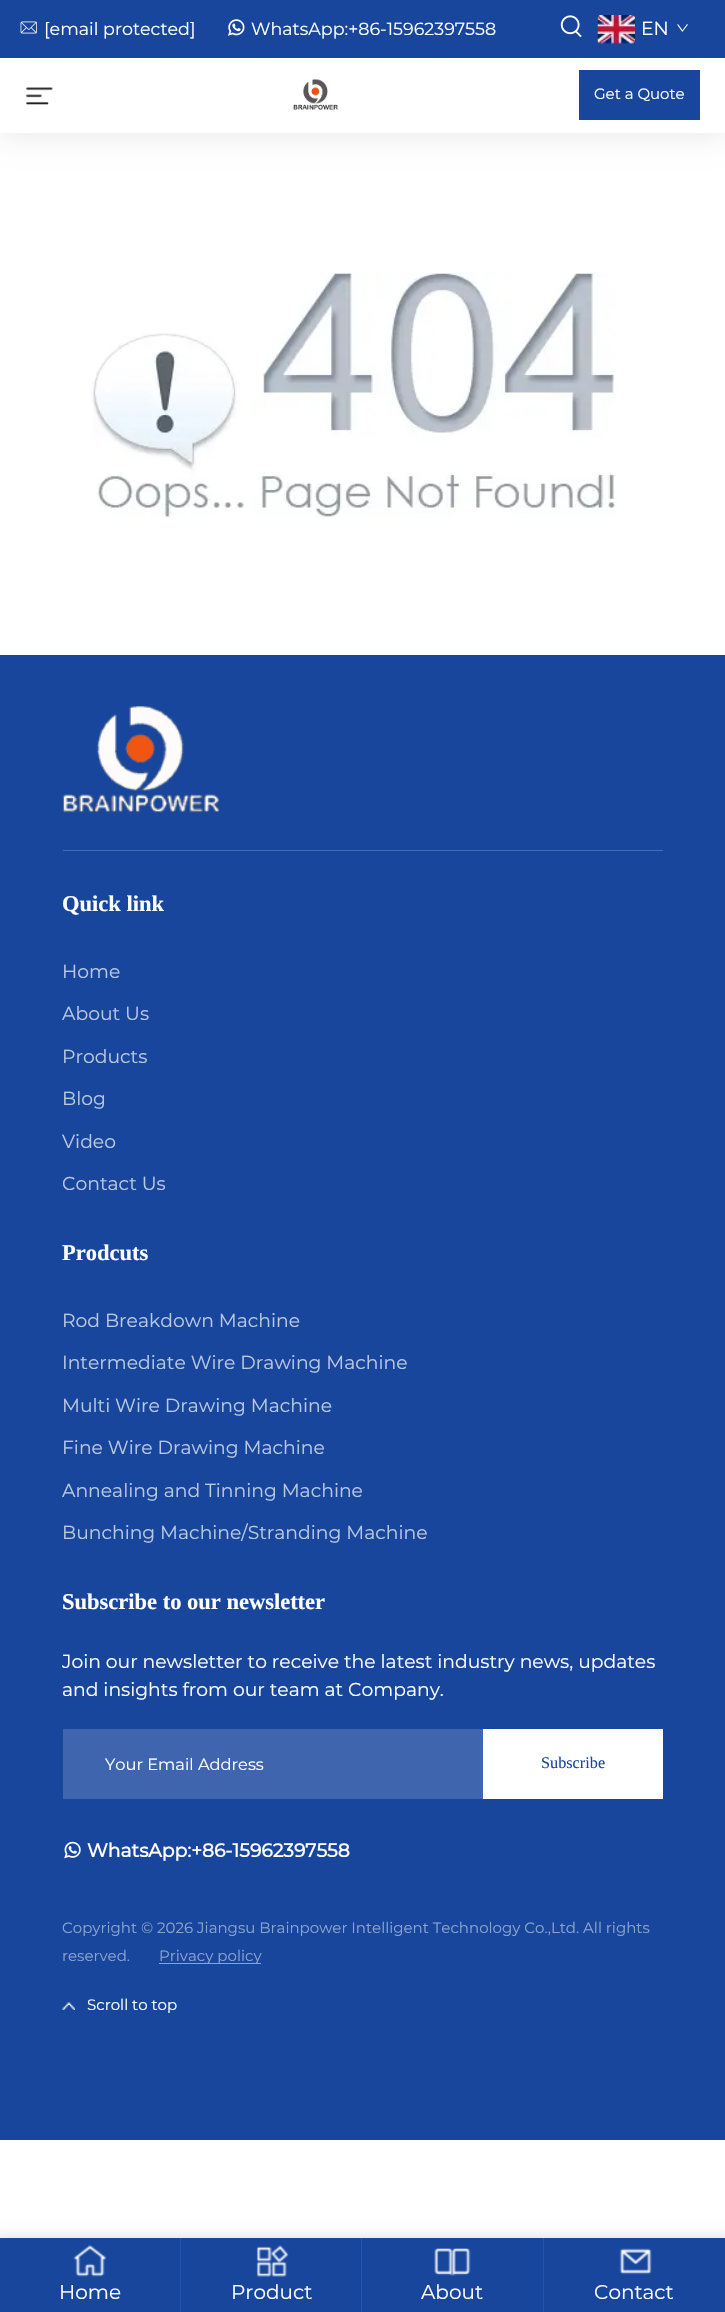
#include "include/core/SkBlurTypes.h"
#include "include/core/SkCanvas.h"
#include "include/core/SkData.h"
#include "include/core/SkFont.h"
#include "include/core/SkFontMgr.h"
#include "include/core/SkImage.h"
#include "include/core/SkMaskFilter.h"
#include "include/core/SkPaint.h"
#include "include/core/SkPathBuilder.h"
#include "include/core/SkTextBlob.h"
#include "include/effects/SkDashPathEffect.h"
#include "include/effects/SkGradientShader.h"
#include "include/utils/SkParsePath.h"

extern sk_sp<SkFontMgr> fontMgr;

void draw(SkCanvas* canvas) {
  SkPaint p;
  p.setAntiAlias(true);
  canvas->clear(SK_ColorWHITE);
  p.setColor(SkColorSetARGB(26, 0, 0, 0));
  p.setMaskFilter(SkMaskFilter::MakeBlur(kNormal_SkBlurStyle, 15.5f));
  canvas->drawRect(SkRect::MakeLTRB(0, 58, 725, 133), p);
  p.setMaskFilter(nullptr);
  p.setColor(SkColorSetRGB(24, 70, 157));
  canvas->drawRect(SkRect::MakeLTRB(0, 0, 725, 58), p);
  canvas->drawImageRect(SkImages::DeferredFromEncodedData(SkData::MakeFromFileName("images/1.png")), SkRect::MakeLTRB(20, 21, 37, 34), SkSamplingOptions());
  canvas->drawImageRect(SkImages::DeferredFromEncodedData(SkData::MakeFromFileName("images/2.png")), SkRect::MakeLTRB(228, 19, 245, 36), SkSamplingOptions());
  canvas->drawImageRect(SkImages::DeferredFromEncodedData(SkData::MakeFromFileName("images/3.png")), SkRect::MakeLTRB(560, 15, 582, 37), SkSamplingOptions());
  canvas->drawImageRect(SkImages::DeferredFromEncodedData(SkData::MakeFromFileName("images/4.png")), SkRect::MakeLTRB(597, 15, 635, 44), SkSamplingOptions());
  canvas->drawImageRect(SkImages::DeferredFromEncodedData(SkData::MakeFromFileName("images/5.png")), SkRect::MakeLTRB(677, 24, 688, 32), SkSamplingOptions());
  p.setColor(SK_ColorWHITE);
  canvas->drawRect(SkRect::MakeLTRB(0, 58, 725, 133), p);
  canvas->drawImageRect(SkImages::DeferredFromEncodedData(SkData::MakeFromFileName("images/6.png")), SkRect::MakeLTRB(26, 87, 53, 105), SkSamplingOptions());
  canvas->drawImageRect(SkImages::DeferredFromEncodedData(SkData::MakeFromFileName("images/7.png")), SkRect::MakeLTRB(293, 78, 338, 110), SkSamplingOptions());
  p.setColor(SkColorSetRGB(24, 70, 157));
  canvas->drawRect(SkRect::MakeLTRB(579, 70, 700, 120), p);
  canvas->drawImageRect(SkImages::DeferredFromEncodedData(SkData::MakeFromFileName("images/8.png")), SkRect::MakeLTRB(91, 272, 617, 518), SkSamplingOptions());
  canvas->drawRect(SkRect::MakeLTRB(0, 655, 725, 2140), p);
  p.setColor(SkColorSetRGB(70, 107, 177));
  canvas->drawRect(SkRect::MakeLTRB(63, 850, 663, 851), p);
  canvas->drawImageRect(SkImages::DeferredFromEncodedData(SkData::MakeFromFileName("images/9.png")), SkRect::MakeLTRB(62, 706, 219, 813), SkSamplingOptions());
  p.setColor(SkColorSetRGB(63, 101, 174));
  canvas->drawRect(SkRect::MakeLTRB(63, 1729, 483, 1799), p);
  p.setColor(SK_ColorWHITE);
  canvas->drawRect(SkRect::MakeLTRB(483, 1729, 663, 1799), p);
  canvas->drawImageRect(SkImages::DeferredFromEncodedData(SkData::MakeFromFileName("images/10.png")), SkRect::MakeLTRB(64, 1841, 81, 1859), SkSamplingOptions());
  p.setColor(SkColorSetRGB(140, 163, 206));
  canvas->drawRect(SkRect::MakeLTRB(159, 1963, 261, 1964), p);
  canvas->drawImageRect(SkImages::DeferredFromEncodedData(SkData::MakeFromFileName("images/11.png")), SkRect::MakeLTRB(62, 2002, 75, 2010), SkSamplingOptions());
  p.setColor(SkColorSetARGB(26, 0, 0, 0));
  p.setMaskFilter(SkMaskFilter::MakeBlur(kNormal_SkBlurStyle, 5));
  canvas->drawRect(SkRect::MakeLTRB(-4, 2235, 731, 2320), p);
  p.setMaskFilter(nullptr);
  p.setColor(SkColorSetRGB(24, 70, 157));
  canvas->drawRect(SkRect::MakeLTRB(0, 2238, 725, 2312), p);
  p.setColor(SkColorSetRGB(32, 84, 181));
  canvas->drawRect(SkRect::MakeLTRB(180, 2238, 181, 2312), p);
  canvas->drawImageRect(SkImages::DeferredFromEncodedData(SkData::MakeFromFileName("images/12.png")), SkRect::MakeLTRB(73, 2245, 107, 2277), SkSamplingOptions());
  canvas->drawRect(SkRect::MakeLTRB(361, 2238, 362, 2312), p);
  canvas->drawImageRect(SkImages::DeferredFromEncodedData(SkData::MakeFromFileName("images/13.png")), SkRect::MakeLTRB(256, 2245, 289, 2277), SkSamplingOptions());
  canvas->drawRect(SkRect::MakeLTRB(543, 2238, 544, 2312), p);
  canvas->drawImageRect(SkImages::DeferredFromEncodedData(SkData::MakeFromFileName("images/14.png")), SkRect::MakeLTRB(434, 2248, 471, 2276), SkSamplingOptions());
  canvas->drawImageRect(SkImages::DeferredFromEncodedData(SkData::MakeFromFileName("images/15.png")), SkRect::MakeLTRB(619, 2248, 652, 2275), SkSamplingOptions());
  SkFont font1(fontMgr->matchFamilyStyle("Montserrat", SkFontStyle::Normal()), 17.5f);
  font1.setSubpixel(true);
  p.setColor(SK_ColorWHITE);
  canvas->drawString("[email protected]", 44, 35, font1, p);
  canvas->drawString("WhatsApp:+86-15962397558", 251, 35, font1, p);
  SkFont font2(fontMgr->matchFamilyStyle("Montserrat", SkFontStyle::Normal()), 18.75f);
  font2.setSubpixel(true);
  canvas->drawString("EN", 641, 35, font2, p);
  SkFont font3(fontMgr->matchFamilyStyle("Montserrat", SkFontStyle::Normal()), 15);
  font3.setSubpixel(true);
  canvas->drawString("Get a Quote", 594, 99, font3, p);
  SkFont font4(fontMgr->matchFamilyStyle("Liberation Serif", SkFontStyle::Bold()), 22.5f);
  font4.setSubpixel(true);
  canvas->drawString("Quick link", 62, 911, font4, p);
  p.setColor(SkColorSetRGB(186, 200, 226));
  canvas->drawString("Home", 62, 978, font2, p);
  canvas->drawString("About Us", 62, 1020, font2, p);
  canvas->drawString("Products", 62, 1063, font2, p);
  canvas->drawString("Blog", 62, 1105, font2, p);
  canvas->drawString("Video", 62, 1148, font2, p);
  canvas->drawString("Contact Us", 62, 1190, font2, p);
  p.setColor(SK_ColorWHITE);
  canvas->drawString("Prodcuts", 62, 1260, font4, p);
  p.setColor(SkColorSetRGB(186, 200, 226));
  canvas->drawString("Rod Breakdown Machine", 62, 1327, font2, p);
  canvas->drawString("Intermediate Wire Drawing Machine", 62, 1369, font2, p);
  canvas->drawString("Multi Wire Drawing Machine", 62, 1412, font2, p);
  canvas->drawString("Fine Wire Drawing Machine", 62, 1454, font2, p);
  canvas->drawString("Annealing and Tinning Machine", 62, 1497, font2, p);
  canvas->drawString("Bunching Machine/Stranding Machine", 62, 1539, font2, p);
  p.setColor(SK_ColorWHITE);
  canvas->drawString("Subscribe to our newsletter", 62, 1609, font4, p);
  canvas->drawString("Join our newsletter to receive the latest industry news, updates", 62, 1668, font2, p);
  canvas->drawString("and insights from our team at Company.", 62, 1696, font2, p);
  SkFont font5(fontMgr->matchFamilyStyle("Montserrat", SkFontStyle::Normal()), 16.25f);
  font5.setSubpixel(true);
  canvas->drawString("Your Email Address", 105, 1770, font5, p);
  SkFont font6(fontMgr->matchFamilyStyle("Liberation Serif", SkFontStyle::Normal()), 16.25f);
  font6.setSubpixel(true);
  p.setColor(SkColorSetRGB(24, 70, 157));
  canvas->drawString("Subscribe", 541, 1768, font6, p);
  SkFont font7(fontMgr->matchFamilyStyle("Montserrat", SkFontStyle::Bold()), 18.75f);
  font7.setSubpixel(true);
  p.setColor(SK_ColorWHITE);
  canvas->drawString("WhatsApp:+86-15962397558", 87, 1857, font7, p);
  p.setColor(SkColorSetRGB(140, 163, 206));
  canvas->drawString("Copyright © 2026 Jiangsu Brainpower Intelligent Technology Co.,Ltd. All rights", 62, 1933, font3, p);
  canvas->drawString("reserved.", 62, 1961, font3, p);
  canvas->drawString("Privacy policy", 159, 1961, font3, p);
  p.setColor(SK_ColorWHITE);
  canvas->drawString("Scroll to top", 87, 2010, font3, p);
  SkFont font8(fontMgr->matchFamilyStyle("Montserrat", SkFontStyle::Normal()), 20);
  font8.setSubpixel(true);
  canvas->drawString("Home", 59, 2299, font8, p);
  canvas->drawString("Product", 231, 2299, font8, p);
  canvas->drawString("About", 421, 2299, font8, p);
  canvas->drawString("Contact", 594, 2299, font8, p);
}
